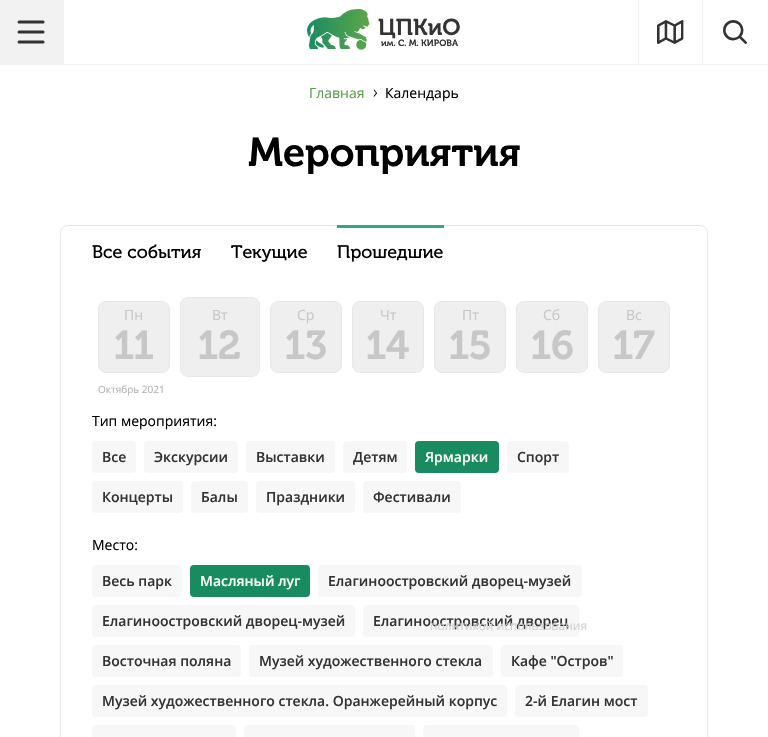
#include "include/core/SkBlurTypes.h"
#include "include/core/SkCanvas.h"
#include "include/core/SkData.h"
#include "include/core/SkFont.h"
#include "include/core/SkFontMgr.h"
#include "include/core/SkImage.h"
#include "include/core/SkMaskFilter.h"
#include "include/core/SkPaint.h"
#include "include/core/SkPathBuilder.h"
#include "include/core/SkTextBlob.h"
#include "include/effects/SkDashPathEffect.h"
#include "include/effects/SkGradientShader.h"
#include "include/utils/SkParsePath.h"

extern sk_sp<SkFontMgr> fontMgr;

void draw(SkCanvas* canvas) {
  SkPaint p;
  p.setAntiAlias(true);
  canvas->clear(SK_ColorWHITE);
  p.setColor(SkColorSetRGB(242, 242, 242));
  canvas->drawRect(SkRect::MakeLTRB(0, 64, 768, 65), p);
  canvas->drawRect(SkRect::MakeLTRB(0, 0, 64, 64), p);
  canvas->drawImageRect(SkImages::DeferredFromEncodedData(SkData::MakeFromFileName("images/1.png")), SkRect::MakeLTRB(17, 20, 45, 44), SkSamplingOptions());
  canvas->drawImageRect(SkImages::DeferredFromEncodedData(SkData::MakeFromFileName("images/2.png")), SkRect::MakeLTRB(307, 9, 370, 50), SkSamplingOptions());
  canvas->drawRect(SkRect::MakeLTRB(638, 0, 639, 64), p);
  canvas->drawImageRect(SkImages::DeferredFromEncodedData(SkData::MakeFromFileName("images/3.png")), SkRect::MakeLTRB(657, 20, 684, 44), SkSamplingOptions());
  canvas->drawRect(SkRect::MakeLTRB(702, 0, 703, 64), p);
  canvas->drawImageRect(SkImages::DeferredFromEncodedData(SkData::MakeFromFileName("images/4.png")), SkRect::MakeLTRB(723, 20, 747, 44), SkSamplingOptions());
  p.setStyle(SkPaint::kStroke_Style);
  p.setStrokeWidth(1);
  p.setColor(SkColorSetRGB(232, 232, 232));
  canvas->drawRoundRect(SkRect::MakeLTRB(60.5f, 225.5f, 707.5f, 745.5f), 7.5f, 7.5f, p);
  p.setStyle(SkPaint::kFill_Style);
  p.setColor(SkColorSetRGB(50, 168, 125));
  canvas->drawRect(SkRect::MakeLTRB(337, 225, 444, 228), p);
  p.setColor(SkColorSetRGB(239, 239, 239));
  canvas->drawRoundRect(SkRect::MakeLTRB(98.5f, 301.5f, 169.5f, 372.5f), 7.5f, 7.5f, p);
  p.setStyle(SkPaint::kStroke_Style);
  p.setColor(SkColorSetRGB(232, 232, 232));
  canvas->drawRoundRect(SkRect::MakeLTRB(98.5f, 301.5f, 169.5f, 372.5f), 7.5f, 7.5f, p);
  p.setStyle(SkPaint::kFill_Style);
  p.setColor(SkColorSetRGB(239, 239, 239));
  canvas->drawRoundRect(SkRect::MakeLTRB(180.5f, 297.5f, 259.5f, 376.5f), 7.5f, 7.5f, p);
  p.setStyle(SkPaint::kStroke_Style);
  p.setColor(SkColorSetRGB(232, 232, 232));
  canvas->drawRoundRect(SkRect::MakeLTRB(180.5f, 297.5f, 259.5f, 376.5f), 7.5f, 7.5f, p);
  p.setStyle(SkPaint::kFill_Style);
  p.setColor(SkColorSetRGB(239, 239, 239));
  canvas->drawRoundRect(SkRect::MakeLTRB(270.5f, 301.5f, 341.5f, 372.5f), 7.5f, 7.5f, p);
  p.setStyle(SkPaint::kStroke_Style);
  p.setColor(SkColorSetRGB(232, 232, 232));
  canvas->drawRoundRect(SkRect::MakeLTRB(270.5f, 301.5f, 341.5f, 372.5f), 7.5f, 7.5f, p);
  p.setStyle(SkPaint::kFill_Style);
  p.setColor(SkColorSetRGB(239, 239, 239));
  canvas->drawRoundRect(SkRect::MakeLTRB(352.5f, 301.5f, 423.5f, 372.5f), 7.5f, 7.5f, p);
  p.setStyle(SkPaint::kStroke_Style);
  p.setColor(SkColorSetRGB(232, 232, 232));
  canvas->drawRoundRect(SkRect::MakeLTRB(352.5f, 301.5f, 423.5f, 372.5f), 7.5f, 7.5f, p);
  p.setStyle(SkPaint::kFill_Style);
  p.setColor(SkColorSetRGB(239, 239, 239));
  canvas->drawRoundRect(SkRect::MakeLTRB(434.5f, 301.5f, 505.5f, 372.5f), 7.5f, 7.5f, p);
  p.setStyle(SkPaint::kStroke_Style);
  p.setColor(SkColorSetRGB(232, 232, 232));
  canvas->drawRoundRect(SkRect::MakeLTRB(434.5f, 301.5f, 505.5f, 372.5f), 7.5f, 7.5f, p);
  p.setStyle(SkPaint::kFill_Style);
  p.setColor(SkColorSetRGB(239, 239, 239));
  canvas->drawRoundRect(SkRect::MakeLTRB(516.5f, 301.5f, 587.5f, 372.5f), 7.5f, 7.5f, p);
  p.setStyle(SkPaint::kStroke_Style);
  p.setColor(SkColorSetRGB(232, 232, 232));
  canvas->drawRoundRect(SkRect::MakeLTRB(516.5f, 301.5f, 587.5f, 372.5f), 7.5f, 7.5f, p);
  p.setStyle(SkPaint::kFill_Style);
  p.setColor(SkColorSetRGB(239, 239, 239));
  canvas->drawRoundRect(SkRect::MakeLTRB(598.5f, 301.5f, 669.5f, 372.5f), 7.5f, 7.5f, p);
  p.setStyle(SkPaint::kStroke_Style);
  p.setColor(SkColorSetRGB(232, 232, 232));
  canvas->drawRoundRect(SkRect::MakeLTRB(598.5f, 301.5f, 669.5f, 372.5f), 7.5f, 7.5f, p);
  p.setStyle(SkPaint::kFill_Style);
  p.setColor(SkColorSetRGB(247, 247, 247));
  canvas->drawRoundRect(SkRect::MakeLTRB(92, 441, 136, 473), 4, 4, p);
  canvas->drawRoundRect(SkRect::MakeLTRB(144, 441, 238, 473), 4, 4, p);
  canvas->drawRoundRect(SkRect::MakeLTRB(246, 441, 335, 473), 4, 4, p);
  canvas->drawRoundRect(SkRect::MakeLTRB(343, 441, 407, 473), 4, 4, p);
  p.setColor(SkColorSetRGB(25, 139, 97));
  canvas->drawRoundRect(SkRect::MakeLTRB(415, 441, 499, 473), 4, 4, p);
  p.setColor(SkColorSetRGB(247, 247, 247));
  canvas->drawRoundRect(SkRect::MakeLTRB(507, 441, 569, 473), 4, 4, p);
  canvas->drawRoundRect(SkRect::MakeLTRB(92, 481, 183, 513), 4, 4, p);
  canvas->drawRoundRect(SkRect::MakeLTRB(191, 481, 248, 513), 4, 4, p);
  canvas->drawRoundRect(SkRect::MakeLTRB(256, 481, 355, 513), 4, 4, p);
  canvas->drawRoundRect(SkRect::MakeLTRB(363, 481, 461, 513), 4, 4, p);
  canvas->drawRoundRect(SkRect::MakeLTRB(92, 565, 182, 597), 4, 4, p);
  p.setColor(SkColorSetRGB(25, 139, 97));
  canvas->drawRoundRect(SkRect::MakeLTRB(190, 565, 310, 597), 4, 4, p);
  p.setColor(SkColorSetRGB(247, 247, 247));
  canvas->drawRoundRect(SkRect::MakeLTRB(318, 565, 582, 597), 4, 4, p);
  canvas->drawRoundRect(SkRect::MakeLTRB(92, 605, 355, 637), 4, 4, p);
  canvas->drawRoundRect(SkRect::MakeLTRB(363, 605, 579, 637), 4, 4, p);
  canvas->drawRoundRect(SkRect::MakeLTRB(92, 645, 241, 677), 4, 4, p);
  canvas->drawRoundRect(SkRect::MakeLTRB(249, 645, 493, 677), 4, 4, p);
  canvas->drawRoundRect(SkRect::MakeLTRB(501, 645, 623, 677), 4, 4, p);
  canvas->drawRoundRect(SkRect::MakeLTRB(92, 685, 507, 717), 4, 4, p);
  canvas->drawRoundRect(SkRect::MakeLTRB(515, 685, 648, 717), 4, 4, p);
  canvas->drawRoundRect(SkRect::MakeLTRB(92, 725, 236, 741), 4, 4, p);
  canvas->drawRoundRect(SkRect::MakeLTRB(244, 725, 415, 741), 4, 4, p);
  canvas->drawRoundRect(SkRect::MakeLTRB(423, 725, 579, 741), 4, 4, p);
  SkFont font1(fontMgr->matchFamilyStyle("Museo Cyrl", SkFontStyle(600, SkFontStyle::kNormal_Width, SkFontStyle::kUpright_Slant)), 23);
  font1.setSubpixel(true);
  p.setColor(SkColorSetRGB(51, 51, 51));
  canvas->drawString("ЦПКиО", 378, 35, font1, p);
  SkFont font2(fontMgr->matchFamilyStyle("Museo Cyrl", SkFontStyle(600, SkFontStyle::kNormal_Width, SkFontStyle::kUpright_Slant)), 9);
  font2.setSubpixel(true);
  canvas->drawString("им. С. М. КИРОВА", 381, 46, font2, p);
  SkFont font3(fontMgr->matchFamilyStyle("Open Sans", SkFontStyle::Normal()), 14);
  font3.setSubpixel(true);
  p.setColor(SkColorSetRGB(88, 157, 70));
  canvas->drawString("Главная", 309, 98, font3, p);
  SkFont font4(fontMgr->matchFamilyStyle("Open Sans", SkFontStyle(300, SkFontStyle::kNormal_Width, SkFontStyle::kUpright_Slant)), 18);
  font4.setSubpixel(true);
  p.setColor(SK_ColorBLACK);
  canvas->drawString("›", 373, 98, font4, p);
  canvas->drawString("Календарь", 385, 98, font3, p);
  SkFont font5(fontMgr->matchFamilyStyle("Museo Cyrl", SkFontStyle(600, SkFontStyle::kNormal_Width, SkFontStyle::kUpright_Slant)), 40);
  font5.setSubpixel(true);
  canvas->drawString("Мероприятия", 248, 166, font5, p);
  SkFont font6(fontMgr->matchFamilyStyle("Museo Cyrl", SkFontStyle::Normal()), 18);
  font6.setSubpixel(true);
  canvas->drawString("Все события", 92, 258, font6, p);
  canvas->drawString("Текущие", 231, 258, font6, p);
  canvas->drawString("Прошедшие", 337, 258, font6, p);
  p.setColor(SkColorSetRGB(199, 199, 199));
  canvas->drawString("Пн", 124, 320, font3, p);
  canvas->drawString("11", 114, 359, font5, p);
  SkFont font7(fontMgr->matchFamilyStyle("Open Sans", SkFontStyle::Normal()), 10);
  font7.setSubpixel(true);
  p.setColor(SkColorSetRGB(176, 176, 176));
  canvas->drawString("Октябрь 2021", 98, 393, font7, p);
  p.setColor(SkColorSetRGB(199, 199, 199));
  canvas->drawString("Вт", 212, 320, font3, p);
  canvas->drawString("12", 198, 359, font5, p);
  canvas->drawString("Ср", 297, 320, font3, p);
  canvas->drawString("13", 285, 359, font5, p);
  canvas->drawString("Чт", 380, 320, font3, p);
  canvas->drawString("14", 366, 359, font5, p);
  canvas->drawString("Пт", 462, 320, font3, p);
  canvas->drawString("15", 449, 359, font5, p);
  canvas->drawString("Сб", 543, 320, font3, p);
  canvas->drawString("16", 531, 359, font5, p);
  canvas->drawString("Вс", 626, 320, font3, p);
  canvas->drawString("17", 613, 359, font5, p);
  p.setColor(SK_ColorBLACK);
  canvas->drawString("Тип мероприятия:", 92, 426, font3, p);
  SkFont font8(fontMgr->matchFamilyStyle("Open Sans", SkFontStyle(600, SkFontStyle::kNormal_Width, SkFontStyle::kUpright_Slant)), 14);
  font8.setSubpixel(true);
  p.setColor(SkColorSetRGB(51, 51, 51));
  canvas->drawString("Все", 102, 462, font8, p);
  canvas->drawString("Экскурсии", 154, 462, font8, p);
  canvas->drawString("Выставки", 256, 462, font8, p);
  canvas->drawString("Детям", 353, 462, font8, p);
  p.setColor(SK_ColorWHITE);
  canvas->drawString("Ярмарки", 425, 462, font8, p);
  p.setColor(SkColorSetRGB(51, 51, 51));
  canvas->drawString("Спорт", 517, 462, font8, p);
  canvas->drawString("Концерты", 102, 502, font8, p);
  canvas->drawString("Балы", 201, 502, font8, p);
  canvas->drawString("Праздники", 266, 502, font8, p);
  canvas->drawString("Фестивали", 373, 502, font8, p);
  p.setColor(SK_ColorBLACK);
  canvas->drawString("Место:", 92, 550, font3, p);
  p.setColor(SkColorSetRGB(51, 51, 51));
  canvas->drawString("Весь парк", 102, 586, font8, p);
  p.setColor(SK_ColorWHITE);
  canvas->drawString("Масляный луг", 200, 586, font8, p);
  p.setColor(SkColorSetRGB(51, 51, 51));
  canvas->drawString("Елагиноостровский дворец-музей", 328, 586, font8, p);
  canvas->drawString("Елагиноостровский дворец-музей", 102, 626, font8, p);
  canvas->drawString("Елагиноостровский дворец", 373, 626, font8, p);
  canvas->drawString("Восточная поляна", 102, 666, font8, p);
  canvas->drawString("Музей художественного стекла", 259, 666, font8, p);
  canvas->drawString("Кафе \"Остров\"", 511, 666, font8, p);
  canvas->drawString("Музей художественного стекла. Оранжерейный корпус", 102, 706, font8, p);
  canvas->drawString("2-й Елагин мост", 525, 706, font8, p);
  SkFont font9(fontMgr->matchFamilyStyle("Open Sans", SkFontStyle::Normal()), 12);
  font9.setSubpixel(true);
  p.setColor(SkColorSetRGB(209, 209, 209));
  canvas->drawString("политикой использования", 430, 630, font9, p);
}
